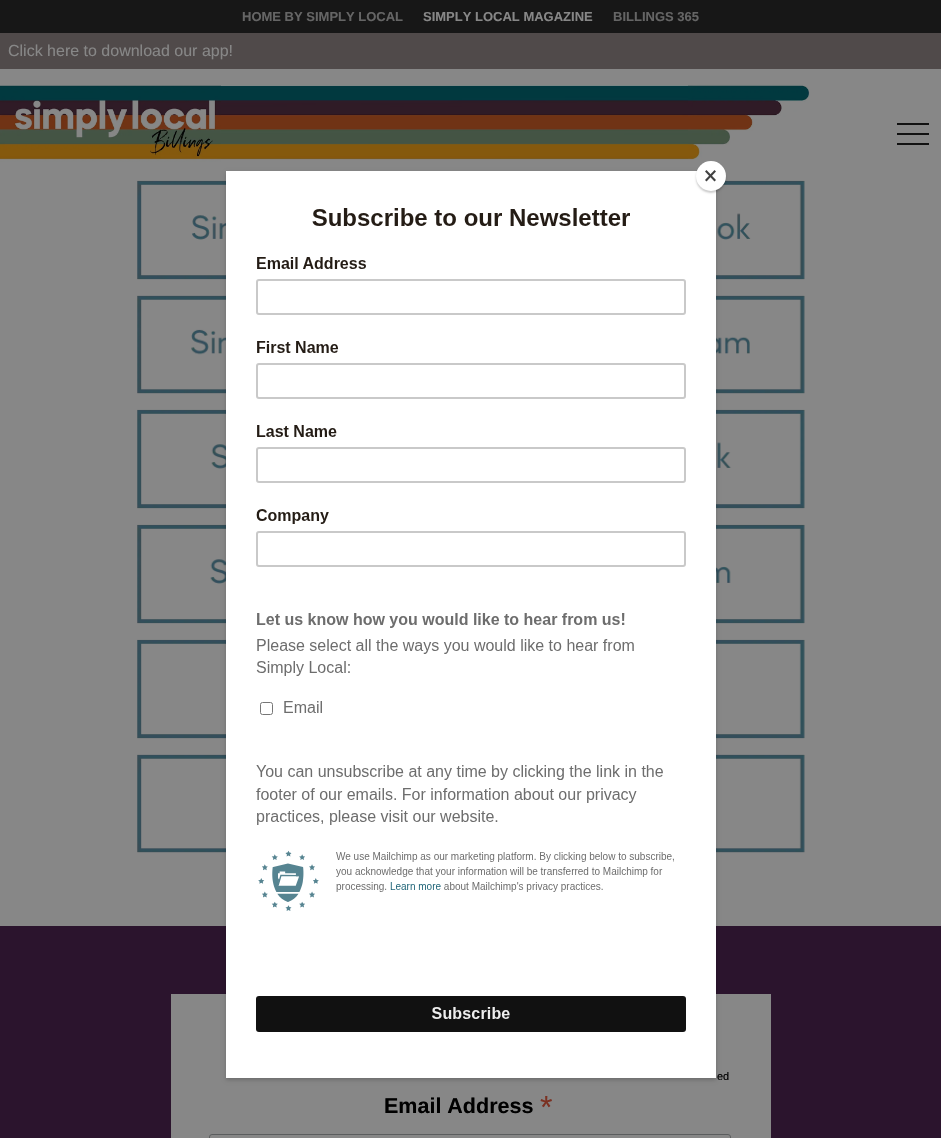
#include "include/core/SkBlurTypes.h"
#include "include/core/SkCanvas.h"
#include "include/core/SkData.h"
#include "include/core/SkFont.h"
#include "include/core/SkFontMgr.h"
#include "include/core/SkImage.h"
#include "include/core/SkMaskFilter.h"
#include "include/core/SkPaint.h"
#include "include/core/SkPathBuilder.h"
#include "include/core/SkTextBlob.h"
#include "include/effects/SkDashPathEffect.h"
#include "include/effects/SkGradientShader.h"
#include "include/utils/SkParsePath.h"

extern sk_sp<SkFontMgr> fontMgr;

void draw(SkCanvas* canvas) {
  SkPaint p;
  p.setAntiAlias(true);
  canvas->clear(SkColorSetRGB(135, 135, 135));
  p.setColor(SkColorSetRGB(23, 23, 23));
  canvas->drawRect(SkRect::MakeLTRB(0, 0, 941, 33), p);
  p.setColor(SkColorSetRGB(80, 74, 74));
  canvas->drawRect(SkRect::MakeLTRB(0, 33, 941, 69), p);
  canvas->drawImageRect(SkImages::DeferredFromEncodedData(SkData::MakeFromFileName("images/1.png")), SkRect::MakeLTRB(0, 85, 221, 162), SkSamplingOptions());
  canvas->drawImageRect(SkImages::DeferredFromEncodedData(SkData::MakeFromFileName("images/2.png")), SkRect::MakeLTRB(221, 84, 810, 160), SkSamplingOptions());
  p.setColor(SkColorSetRGB(18, 18, 18));
  canvas->drawRect(SkRect::MakeLTRB(897, 133, 929, 135), p);
  canvas->drawRect(SkRect::MakeLTRB(897, 123, 929, 125), p);
  canvas->drawRect(SkRect::MakeLTRB(897, 143, 929, 145), p);
  canvas->drawImageRect(SkImages::DeferredFromEncodedData(SkData::MakeFromFileName("images/3.png")), SkRect::MakeLTRB(137, 180, 805, 280), SkSamplingOptions());
  canvas->drawImageRect(SkImages::DeferredFromEncodedData(SkData::MakeFromFileName("images/4.png")), SkRect::MakeLTRB(137, 295, 805, 394), SkSamplingOptions());
  canvas->drawImageRect(SkImages::DeferredFromEncodedData(SkData::MakeFromFileName("images/5.png")), SkRect::MakeLTRB(137, 409, 805, 509), SkSamplingOptions());
  canvas->drawImageRect(SkImages::DeferredFromEncodedData(SkData::MakeFromFileName("images/6.png")), SkRect::MakeLTRB(137, 524, 805, 624), SkSamplingOptions());
  canvas->drawImageRect(SkImages::DeferredFromEncodedData(SkData::MakeFromFileName("images/7.png")), SkRect::MakeLTRB(137, 639, 805, 739), SkSamplingOptions());
  canvas->drawImageRect(SkImages::DeferredFromEncodedData(SkData::MakeFromFileName("images/8.png")), SkRect::MakeLTRB(137, 754, 805, 853), SkSamplingOptions());
  p.setColor(SkColorSetRGB(43, 20, 45));
  canvas->drawRect(SkRect::MakeLTRB(0, 926, 941, 1138), p);
  p.setColor(SkColorSetRGB(135, 135, 135));
  canvas->drawRect(SkRect::MakeLTRB(171, 994, 771, 1138), p);
  p.setStyle(SkPaint::kStroke_Style);
  p.setStrokeWidth(1);
  p.setColor(SkColorSetRGB(91, 93, 94));
  canvas->drawRoundRect(SkRect::MakeLTRB(209.5f, 1134.5f, 730.5f, 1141.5f), 2.5f, 2.5f, p);
  p.setStyle(SkPaint::kFill_Style);
  p.setColor(SkColorSetARGB(51, 0, 0, 0));
  p.setMaskFilter(SkMaskFilter::MakeBlur(kNormal_SkBlurStyle, 2));
  canvas->drawRect(SkRect::MakeLTRB(226, 173, 716, 1080), p);
  p.setMaskFilter(nullptr);
  canvas->drawImageRect(SkImages::DeferredFromEncodedData(SkData::MakeFromFileName("images/9.png")), SkRect::MakeLTRB(226, 171, 716, 1078), SkSamplingOptions());
  p.setMaskFilter(SkMaskFilter::MakeBlur(kNormal_SkBlurStyle, 1));
  canvas->drawRoundRect(SkRect::MakeLTRB(696, 163, 726, 193), 15, 15, p);
  p.setMaskFilter(nullptr);
  p.setColor(SK_ColorWHITE);
  canvas->drawCircle(711, 176, 15, p);
  p.setColor(SkColorSetRGB(65, 65, 65));
  canvas->drawPath(SkPathBuilder().moveTo(714.5f, 170).lineTo(716, 171.5f).lineTo(706.5f, 181.5f).lineTo(705, 180).close().detach(), p);
  canvas->drawPath(SkPathBuilder().moveTo(705, 171.5f).lineTo(706.5f, 170).lineTo(716, 180).lineTo(714.5f, 181.5f).close().detach(), p);
  SkFont font1(fontMgr->matchFamilyStyle("Liberation Sans", SkFontStyle::Bold()), 13);
  font1.setSubpixel(true);
  p.setColor(SkColorSetRGB(101, 101, 101));
  canvas->drawString("HOME BY SIMPLY LOCAL", 242, 21, font1, p);
  p.setColor(SkColorSetRGB(135, 135, 135));
  canvas->drawString("SIMPLY LOCAL MAGAZINE", 423, 21, font1, p);
  p.setColor(SkColorSetRGB(101, 101, 101));
  canvas->drawString("BILLINGS 365", 613, 21, font1, p);
  SkFont font2(fontMgr->matchFamilyStyle("Liberation Sans", SkFontStyle::Normal()), 16);
  font2.setSubpixel(true);
  p.setColor(SkColorSetRGB(135, 135, 135));
  canvas->drawString("Click here to download our app!", 8, 56, font2, p);
  SkFont font3(fontMgr->matchFamilyStyle("Liberation Sans", SkFontStyle::Normal()), 11);
  font3.setSubpixel(true);
  p.setColor(SK_ColorBLACK);
  canvas->drawString("ed", 717, 1080, font3, p);
  SkFont font4(fontMgr->matchFamilyStyle("Liberation Sans", SkFontStyle::Bold()), 21.5f);
  font4.setSubpixel(true);
  canvas->drawString("Email Address", 384, 1113, font4, p);
  SkFont font5(fontMgr->matchFamilyStyle("Liberation Sans", SkFontStyle::Normal()), 32);
  font5.setSubpixel(true);
  p.setColor(SkColorSetRGB(123, 49, 34));
  canvas->drawString("*", 540, 1118, font5, p);
}
